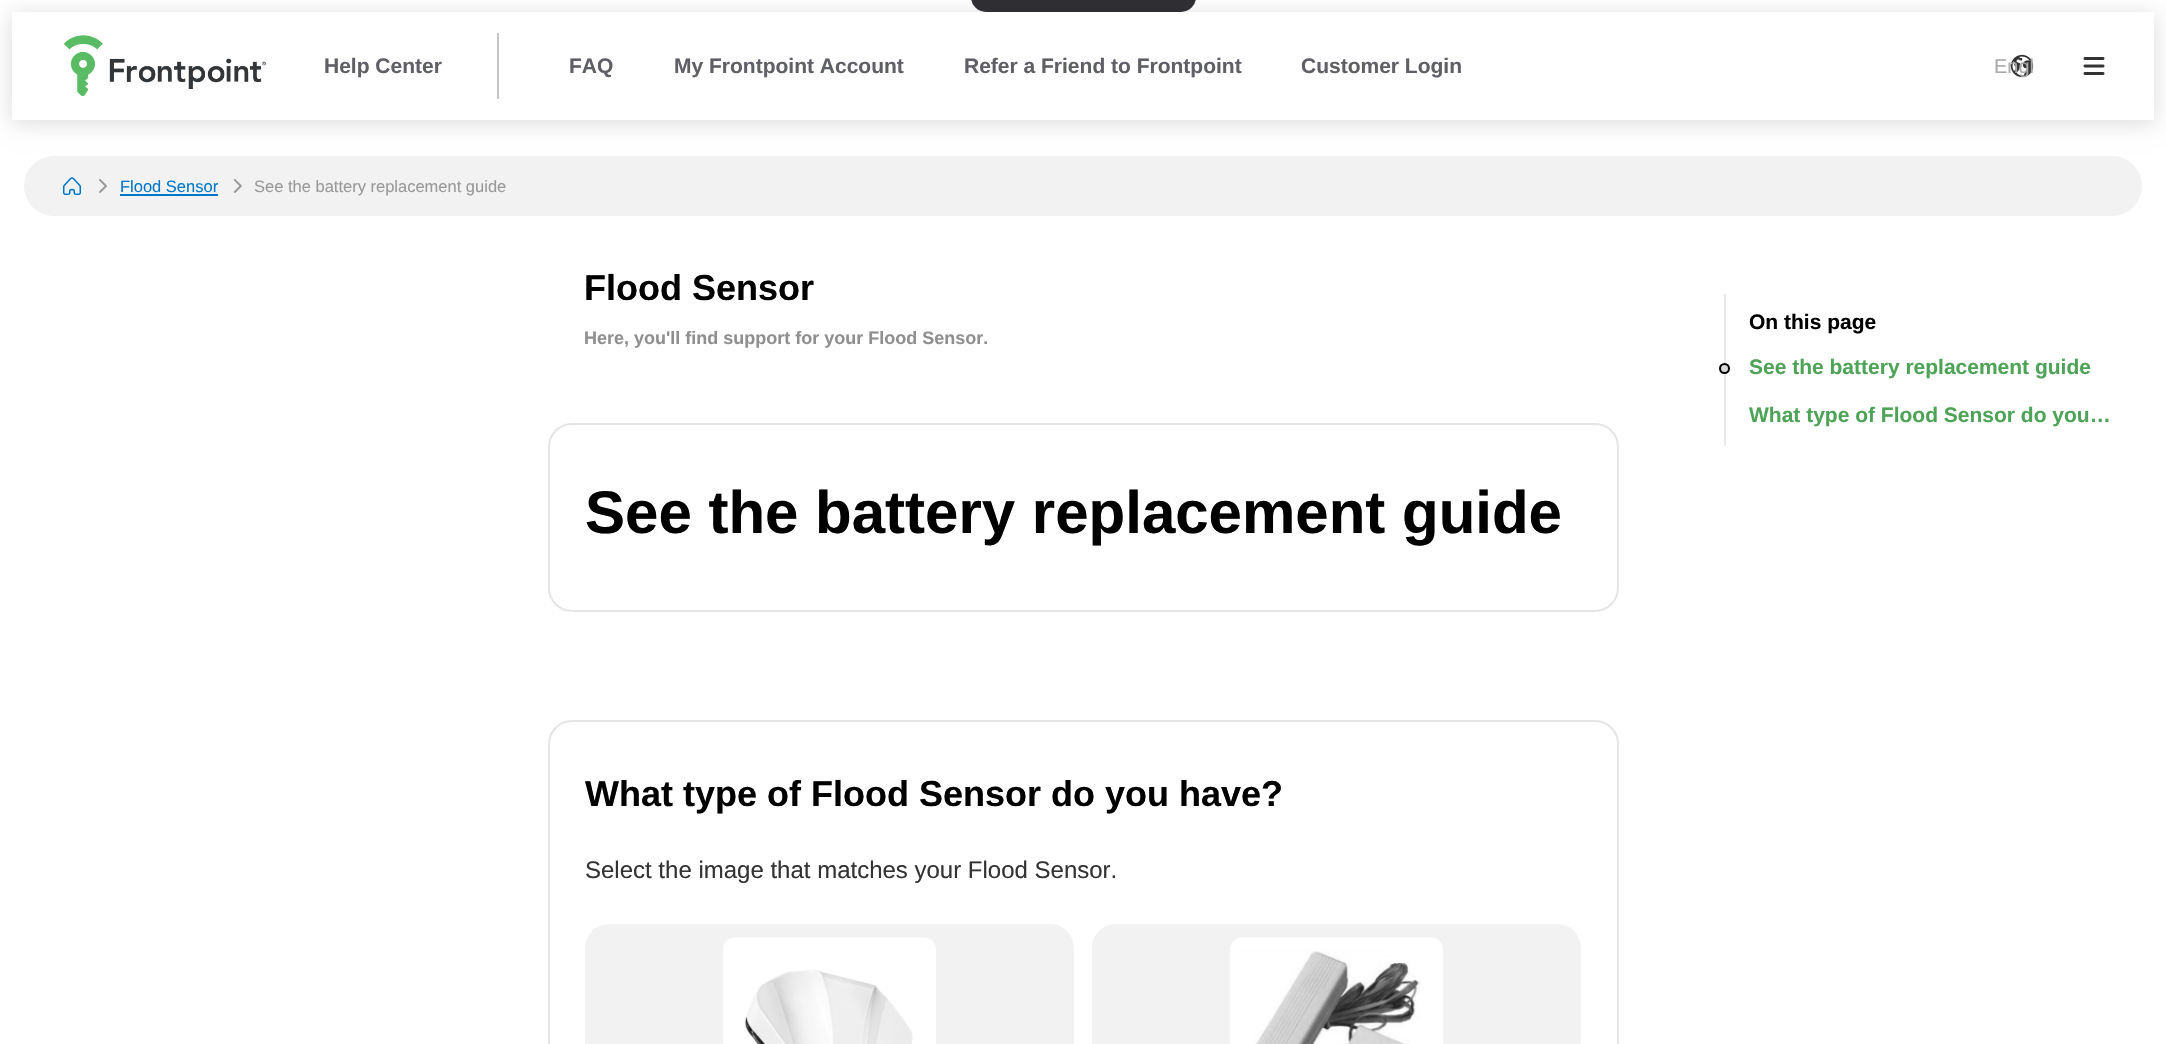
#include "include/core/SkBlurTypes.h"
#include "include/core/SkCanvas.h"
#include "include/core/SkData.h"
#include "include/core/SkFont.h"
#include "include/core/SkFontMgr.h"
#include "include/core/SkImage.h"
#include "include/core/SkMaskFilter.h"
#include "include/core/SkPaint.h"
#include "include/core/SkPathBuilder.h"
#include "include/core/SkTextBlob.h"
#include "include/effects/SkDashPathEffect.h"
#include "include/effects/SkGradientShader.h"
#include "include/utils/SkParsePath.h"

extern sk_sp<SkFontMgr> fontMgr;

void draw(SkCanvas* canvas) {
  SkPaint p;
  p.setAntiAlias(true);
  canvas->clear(SK_ColorWHITE);
  canvas->save();
  canvas->clipPath(SkPathBuilder(SkPathFillType::kEvenOdd).moveTo(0, 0).lineTo(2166, 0).lineTo(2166, 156).lineTo(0, 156).close().moveTo(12, 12).lineTo(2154, 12).lineTo(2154, 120).lineTo(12, 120).close().detach(), true);
  p.setColor(SkColorSetARGB(36, 0, 0, 0));
  p.setMaskFilter(SkMaskFilter::MakeBlur(kNormal_SkBlurStyle, 10.5f));
  canvas->drawRect(SkRect::MakeLTRB(12, 15, 2154, 123), p);
  p.setMaskFilter(nullptr);
  canvas->restore();
  p.setColor(SkColorSetRGB(47, 47, 51));
  canvas->drawRoundRect(SkRect::MakeLTRB(971, -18, 1196, 12), 18, 18, p);
  canvas->drawImageRect(SkImages::DeferredFromEncodedData(SkData::MakeFromFileName("images/1.png")), SkRect::MakeLTRB(64, 35, 266, 96), SkSamplingOptions());
  p.setColor(SkColorSetRGB(196, 196, 204));
  canvas->drawRect(SkRect::MakeLTRB(497, 33, 499, 99), p);
  canvas->drawImageRect(SkImages::DeferredFromEncodedData(SkData::MakeFromFileName("images/2.png")), SkRect::MakeLTRB(2010, 54, 2034, 78), SkSamplingOptions());
  canvas->drawImageRect(SkImages::DeferredFromEncodedData(SkData::MakeFromFileName("images/3.png")), SkRect::MakeLTRB(2083, 57, 2105, 75), SkSamplingOptions());
  p.setColor(SkColorSetRGB(242, 242, 242));
  canvas->drawRoundRect(SkRect::MakeLTRB(24, 156, 2142, 216), 30, 30, p);
  canvas->drawImageRect(SkImages::DeferredFromEncodedData(SkData::MakeFromFileName("images/4.png")), SkRect::MakeLTRB(63, 177, 81, 195), SkSamplingOptions());
  canvas->drawImageRect(SkImages::DeferredFromEncodedData(SkData::MakeFromFileName("images/5.png")), SkRect::MakeLTRB(99, 179, 107, 193), SkSamplingOptions());
  p.setColor(SkColorSetRGB(0, 120, 201));
  canvas->drawRect(SkRect::MakeLTRB(120, 194, 218, 196), p);
  canvas->drawImageRect(SkImages::DeferredFromEncodedData(SkData::MakeFromFileName("images/6.png")), SkRect::MakeLTRB(233, 179, 242, 193), SkSamplingOptions());
  p.setStyle(SkPaint::kStroke_Style);
  p.setStrokeWidth(2);
  p.setColor(SkColorSetRGB(229, 229, 229));
  canvas->drawRoundRect(SkRect::MakeLTRB(549, 424, 1618, 611), 23, 23, p);
  canvas->drawRoundRect(SkRect::MakeLTRB(549, 721, 1618, 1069), 23, 23, p);
  p.setStyle(SkPaint::kFill_Style);
  p.setColor(SkColorSetRGB(242, 242, 242));
  canvas->drawRoundRect(SkRect::MakeLTRB(585, 924, 1074, 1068), 24, 24, p);
  canvas->drawImageRect(SkImages::DeferredFromEncodedData(SkData::MakeFromFileName("images/7.png")), SkRect::MakeLTRB(723, 937, 936, 1044), SkSamplingOptions());
  canvas->drawRoundRect(SkRect::MakeLTRB(1092, 924, 1581, 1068), 24, 24, p);
  canvas->drawImageRect(SkImages::DeferredFromEncodedData(SkData::MakeFromFileName("images/8.png")), SkRect::MakeLTRB(1230, 937, 1443, 1044), SkSamplingOptions());
  p.setColor(SkColorSetRGB(232, 233, 237));
  canvas->drawRect(SkRect::MakeLTRB(1724, 294, 1726, 446), p);
  p.setColor(SkColorSetRGB(217, 217, 217));
  canvas->drawCircle(1724.5f, 368.5f, 4.5f, p);
  p.setStyle(SkPaint::kStroke_Style);
  p.setColor(SK_ColorBLACK);
  canvas->drawCircle(1724.5f, 368.5f, 4.5f, p);
  SkFont font1(fontMgr->matchFamilyStyle("Liberation Sans", SkFontStyle::Bold()), 21);
  font1.setSubpixel(true);
  p.setStyle(SkPaint::kFill_Style);
  p.setColor(SkColorSetRGB(95, 95, 102));
  canvas->drawString("Help Center", 324, 73, font1, p);
  canvas->drawString("FAQ", 569, 73, font1, p);
  canvas->drawString("My Frontpoint Account", 674, 73, font1, p);
  canvas->drawString("Refer a Friend to Frontpoint", 964, 73, font1, p);
  canvas->drawString("Customer Login", 1301, 73, font1, p);
  SkFont font2(fontMgr->matchFamilyStyle("Liberation Sans", SkFontStyle::Normal()), 20);
  font2.setSubpixel(true);
  p.setColor(SkColorSetRGB(170, 170, 170));
  canvas->drawString("Engl", 1994, 73, font2, p);
  SkFont font3(fontMgr->matchFamilyStyle("Liberation Sans", SkFontStyle::Normal()), 16.5f);
  font3.setSubpixel(true);
  p.setColor(SkColorSetRGB(0, 120, 201));
  canvas->drawString("Flood Sensor", 120, 192, font3, p);
  p.setColor(SkColorSetRGB(153, 153, 153));
  canvas->drawString("See the battery replacement guide", 254, 192, font3, p);
  SkFont font4(fontMgr->matchFamilyStyle("Liberation Sans", SkFontStyle::Bold()), 36);
  font4.setSubpixel(true);
  p.setColor(SK_ColorBLACK);
  canvas->drawString("Flood Sensor", 584, 300, font4, p);
  SkFont font5(fontMgr->matchFamilyStyle("Liberation Sans", SkFontStyle::Bold()), 18);
  font5.setSubpixel(true);
  p.setColor(SkColorSetRGB(143, 143, 143));
  canvas->drawString("Here, you'll find support for your Flood Sensor.", 584, 344, font5, p);
  SkFont font6(fontMgr->matchFamilyStyle("Liberation Sans", SkFontStyle::Bold()), 60);
  font6.setSubpixel(true);
  p.setColor(SK_ColorBLACK);
  canvas->drawString("See the battery replacement guide", 585, 533, font6, p);
  canvas->drawString("What type of Flood Sensor do you have?", 585, 806, font4, p);
  SkFont font7(fontMgr->matchFamilyStyle("Liberation Sans", SkFontStyle::Normal()), 24);
  font7.setSubpixel(true);
  p.setColor(SkColorSetRGB(51, 51, 51));
  canvas->drawString("Select the image that matches your Flood Sensor.", 585, 878, font7, p);
  p.setColor(SK_ColorBLACK);
  canvas->drawString("On this page", 1749, 329, font1, p);
  p.setColor(SkColorSetRGB(77, 164, 86));
  canvas->drawString("See the battery replacement guide", 1749, 374, font1, p);
  canvas->drawString("What type of Flood Sensor do you…", 1749, 422, font1, p);
}
